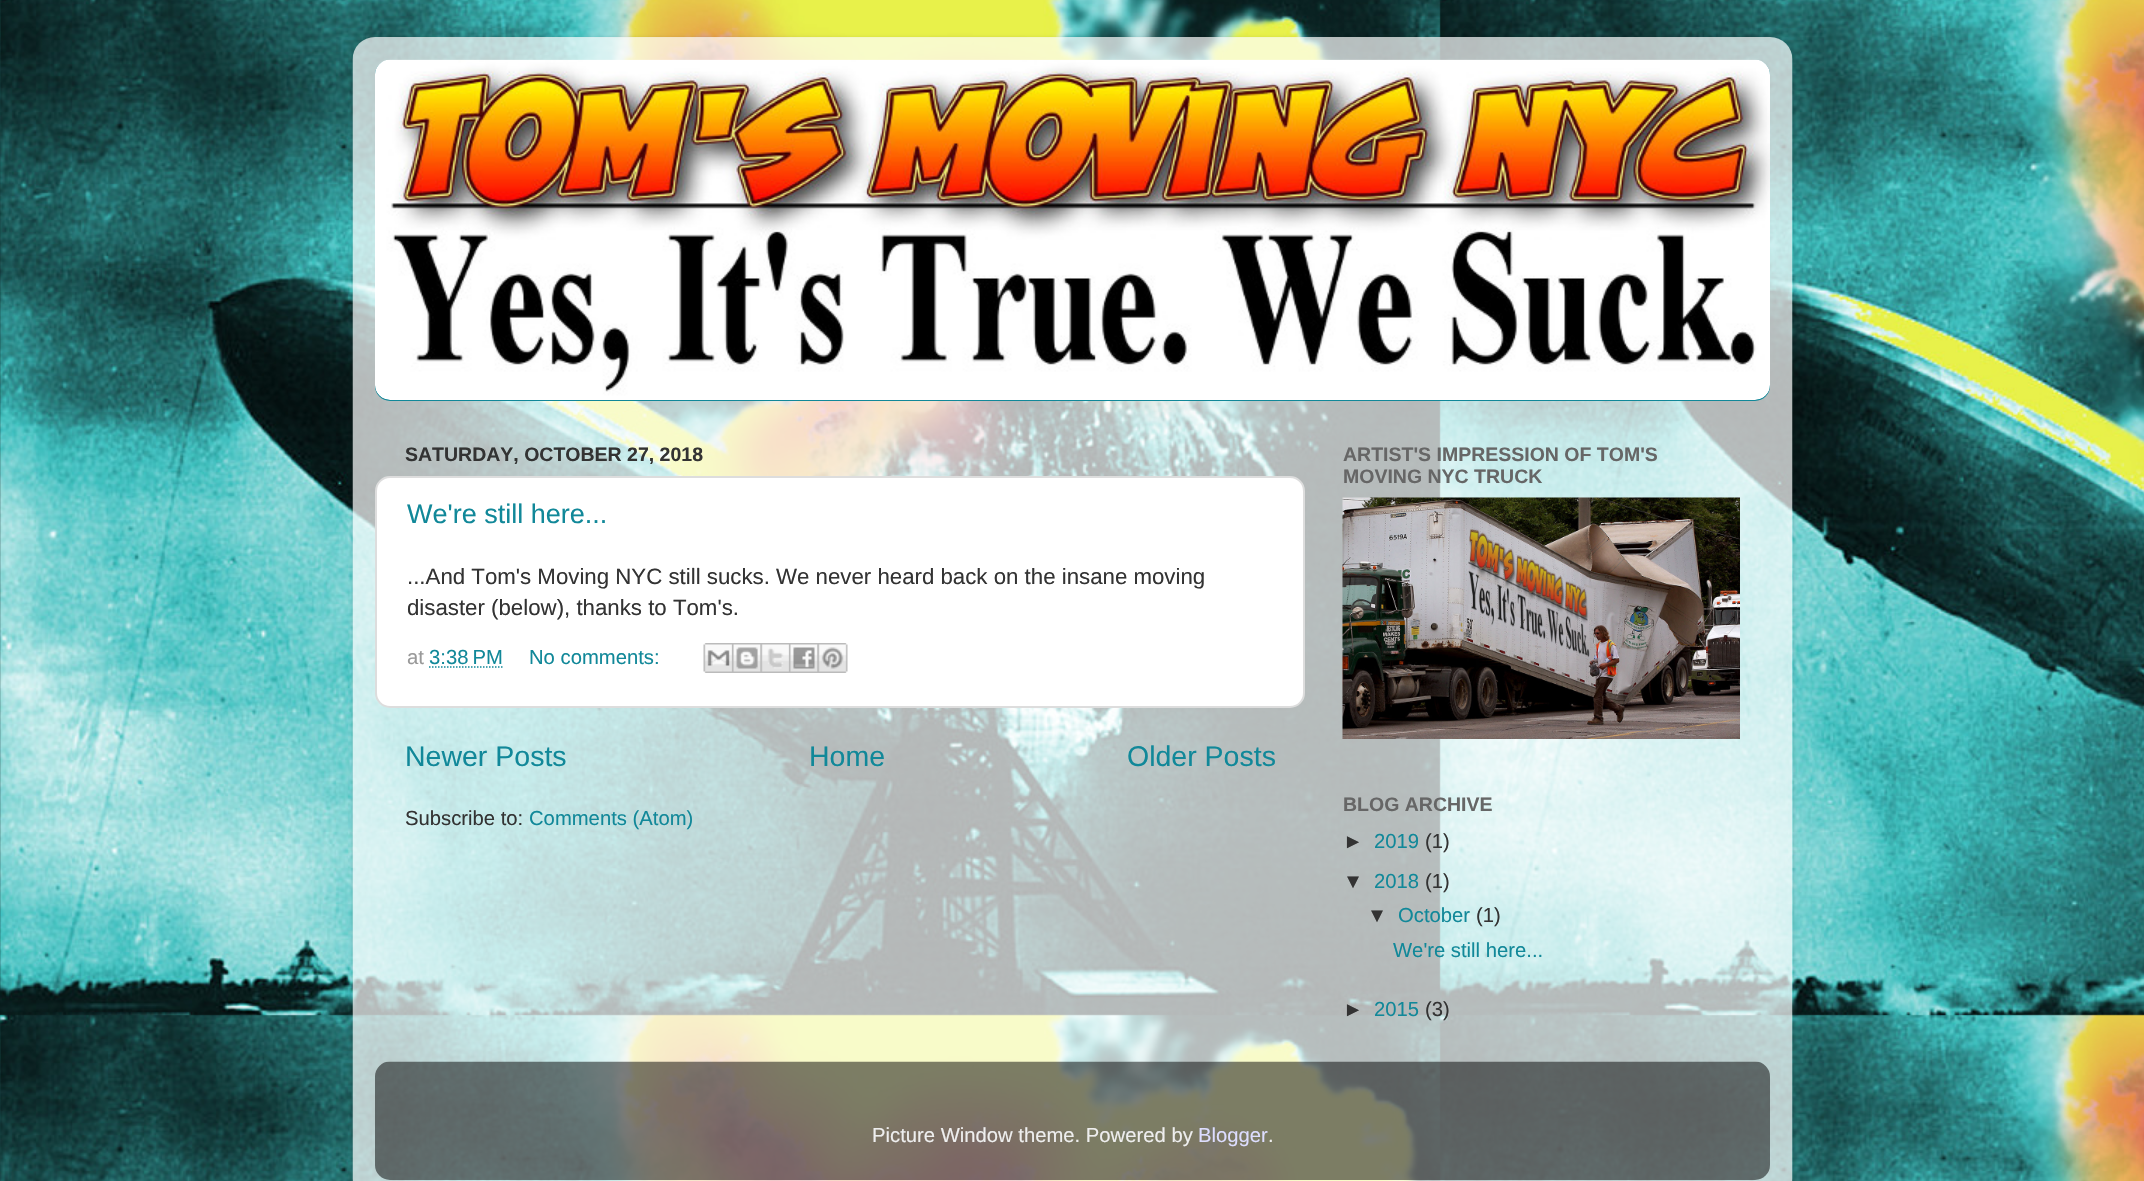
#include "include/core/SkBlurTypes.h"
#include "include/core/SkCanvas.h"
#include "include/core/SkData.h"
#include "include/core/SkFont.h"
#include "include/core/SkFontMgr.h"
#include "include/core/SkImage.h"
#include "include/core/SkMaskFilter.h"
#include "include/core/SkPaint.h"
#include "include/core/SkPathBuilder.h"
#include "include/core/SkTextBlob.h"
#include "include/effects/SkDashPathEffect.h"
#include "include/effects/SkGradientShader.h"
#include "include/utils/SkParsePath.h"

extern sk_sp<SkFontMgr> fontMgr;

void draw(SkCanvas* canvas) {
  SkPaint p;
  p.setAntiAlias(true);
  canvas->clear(SK_ColorWHITE);
  canvas->drawImageRect(SkImages::DeferredFromEncodedData(SkData::MakeFromFileName("images/1.png")), SkRect::MakeLTRB(0, 0, 2144, 1181), SkSamplingOptions());
  canvas->save();
  canvas->clipPath(SkPathBuilder(SkPathFillType::kEvenOdd).moveTo(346, 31).lineTo(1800, 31).lineTo(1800, 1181).lineTo(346, 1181).close().moveTo(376, 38).lineTo(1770, 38).cubicTo(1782.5f, 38, 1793, 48.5f, 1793, 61).lineTo(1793, 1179).cubicTo(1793, 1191.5f, 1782.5f, 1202, 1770, 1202).lineTo(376, 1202).cubicTo(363.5f, 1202, 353, 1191.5f, 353, 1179).lineTo(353, 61).cubicTo(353, 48.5f, 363.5f, 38, 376, 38).close().detach(), true);
  p.setColor(SkColorSetARGB(38, 0, 0, 0));
  p.setMaskFilter(SkMaskFilter::MakeBlur(kNormal_SkBlurStyle, 2));
  canvas->drawRoundRect(SkRect::MakeLTRB(353, 38, 1793, 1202), 23, 23, p);
  p.setMaskFilter(nullptr);
  canvas->restore();
  canvas->drawImageRect(SkImages::DeferredFromEncodedData(SkData::MakeFromFileName("images/2.png")), SkRect::MakeLTRB(352, 37, 1793, 1181), SkSamplingOptions());
  p.setColor(SkColorSetRGB(17, 136, 153));
  canvas->drawRoundRect(SkRect::MakeLTRB(375, 60, 1770, 401), 15, 15, p);
  canvas->drawImageRect(SkImages::DeferredFromEncodedData(SkData::MakeFromFileName("images/3.png")), SkRect::MakeLTRB(375, 60, 1770, 75), SkSamplingOptions());
  canvas->drawImageRect(SkImages::DeferredFromEncodedData(SkData::MakeFromFileName("images/4.png")), SkRect::MakeLTRB(375, 59, 1770, 400), SkSamplingOptions());
  p.setColor(SK_ColorWHITE);
  canvas->drawRoundRect(SkRect::MakeLTRB(376, 477, 1304, 707), 14, 14, p);
  p.setStyle(SkPaint::kStroke_Style);
  p.setStrokeWidth(2);
  p.setColor(SkColorSetRGB(221, 221, 221));
  canvas->drawRoundRect(SkRect::MakeLTRB(376, 477, 1304, 707), 14, 14, p);
  p.setStrokeWidth(1.5f);
  p.setColor(SkColorSetRGB(17, 136, 153));
  p.setPathEffect(SkDashPathEffect::Make({{1.5f, 1.5f}}, 0));
  canvas->drawPath(SkPathBuilder().moveTo(429, 667).lineTo(503, 667).detach(), p);
  p.setPathEffect(nullptr);
  canvas->drawImageRect(SkImages::DeferredFromEncodedData(SkData::MakeFromFileName("images/5.png")), SkRect::MakeLTRB(703, 643, 732, 673), SkSamplingOptions());
  canvas->drawImageRect(SkImages::DeferredFromEncodedData(SkData::MakeFromFileName("images/6.png")), SkRect::MakeLTRB(732, 643, 761, 673), SkSamplingOptions());
  canvas->drawImageRect(SkImages::DeferredFromEncodedData(SkData::MakeFromFileName("images/7.png")), SkRect::MakeLTRB(760, 643, 789, 673), SkSamplingOptions());
  canvas->drawImageRect(SkImages::DeferredFromEncodedData(SkData::MakeFromFileName("images/8.png")), SkRect::MakeLTRB(789, 643, 818, 673), SkSamplingOptions());
  canvas->drawImageRect(SkImages::DeferredFromEncodedData(SkData::MakeFromFileName("images/9.png")), SkRect::MakeLTRB(817, 643, 848, 673), SkSamplingOptions());
  canvas->drawImageRect(SkImages::DeferredFromEncodedData(SkData::MakeFromFileName("images/10.png")), SkRect::MakeLTRB(1342, 497, 1740, 739), SkSamplingOptions());
  canvas->drawImageRect(SkImages::DeferredFromEncodedData(SkData::MakeFromFileName("images/11.png")), SkRect::MakeLTRB(375, 1061, 1770, 1180), SkSamplingOptions());
  SkFont font1(fontMgr->matchFamilyStyle("Liberation Sans", SkFontStyle::Bold()), 19.5f);
  font1.setSubpixel(true);
  p.setStyle(SkPaint::kFill_Style);
  p.setColor(SkColorSetRGB(51, 51, 51));
  canvas->drawString("SATURDAY, OCTOBER 27, 2018", 405, 461, font1, p);
  SkFont font2(fontMgr->matchFamilyStyle("Liberation Sans", SkFontStyle::Normal()), 27);
  font2.setSubpixel(true);
  p.setColor(SkColorSetRGB(17, 136, 153));
  canvas->drawString("We're still here...", 407, 523, font2, p);
  SkFont font3(fontMgr->matchFamilyStyle("Liberation Sans", SkFontStyle::Normal()), 22.25f);
  font3.setSubpixel(true);
  p.setColor(SkColorSetRGB(51, 51, 51));
  canvas->drawString("...And Tom's Moving NYC still sucks. We never heard back on the insane moving", 407, 584, font3, p);
  canvas->drawString("disaster (below), thanks to Tom's.", 407, 615, font3, p);
  SkFont font4(fontMgr->matchFamilyStyle("Liberation Sans", SkFontStyle::Normal()), 20.25f);
  font4.setSubpixel(true);
  p.setColor(SkColorSetRGB(153, 153, 153));
  canvas->drawString("at", 407, 664, font4, p);
  p.setColor(SkColorSetRGB(17, 136, 153));
  canvas->drawString("3:38 PM", 429, 664, font4, p);
  canvas->drawString("No comments:", 529, 664, font4, p);
  SkFont font5(fontMgr->matchFamilyStyle("Liberation Sans", SkFontStyle::Normal()), 28.5f);
  font5.setSubpixel(true);
  canvas->drawString("Newer Posts", 405, 766, font5, p);
  canvas->drawString("Home", 809, 766, font5, p);
  canvas->drawString("Older Posts", 1127, 766, font5, p);
  p.setColor(SkColorSetRGB(51, 51, 51));
  canvas->drawString("Subscribe to:", 405, 825, font4, p);
  p.setColor(SkColorSetRGB(17, 136, 153));
  canvas->drawString("Comments (Atom)", 529, 825, font4, p);
  p.setColor(SkColorSetRGB(102, 102, 102));
  canvas->drawString("ARTIST'S IMPRESSION OF TOM'S", 1343, 461, font1, p);
  canvas->drawString("MOVING NYC TRUCK", 1343, 483, font1, p);
  canvas->drawString("BLOG ARCHIVE", 1343, 811, font1, p);
  p.setColor(SkColorSetRGB(51, 51, 51));
  canvas->drawString("►", 1343, 848, font4, p);
  p.setColor(SkColorSetRGB(17, 136, 153));
  canvas->drawString("2019", 1374, 848, font4, p);
  p.setColor(SkColorSetRGB(51, 51, 51));
  canvas->drawString("(1)", 1425, 848, font4, p);
  canvas->drawString("▼", 1343, 888, font4, p);
  p.setColor(SkColorSetRGB(17, 136, 153));
  canvas->drawString("2018", 1374, 888, font4, p);
  p.setColor(SkColorSetRGB(51, 51, 51));
  canvas->drawString("(1)", 1425, 888, font4, p);
  canvas->drawString("▼", 1367, 922, font4, p);
  p.setColor(SkColorSetRGB(17, 136, 153));
  canvas->drawString("October", 1398, 922, font4, p);
  p.setColor(SkColorSetRGB(51, 51, 51));
  canvas->drawString("(1)", 1476, 922, font4, p);
  p.setColor(SkColorSetRGB(17, 136, 153));
  canvas->drawString("We're still here...", 1393, 957, font4, p);
  p.setColor(SkColorSetRGB(51, 51, 51));
  canvas->drawString("►", 1343, 1016, font4, p);
  p.setColor(SkColorSetRGB(17, 136, 153));
  canvas->drawString("2015", 1374, 1016, font4, p);
  p.setColor(SkColorSetRGB(51, 51, 51));
  canvas->drawString("(3)", 1425, 1016, font4, p);
  p.setColor(SkColorSetRGB(238, 238, 238));
  canvas->drawString("Picture Window theme. Powered by", 872, 1142, font4, p);
  p.setColor(SkColorSetRGB(221, 221, 255));
  canvas->drawString("Blogger", 1198, 1142, font4, p);
  p.setColor(SkColorSetRGB(238, 238, 238));
  canvas->drawString(".", 1268, 1142, font4, p);
}
